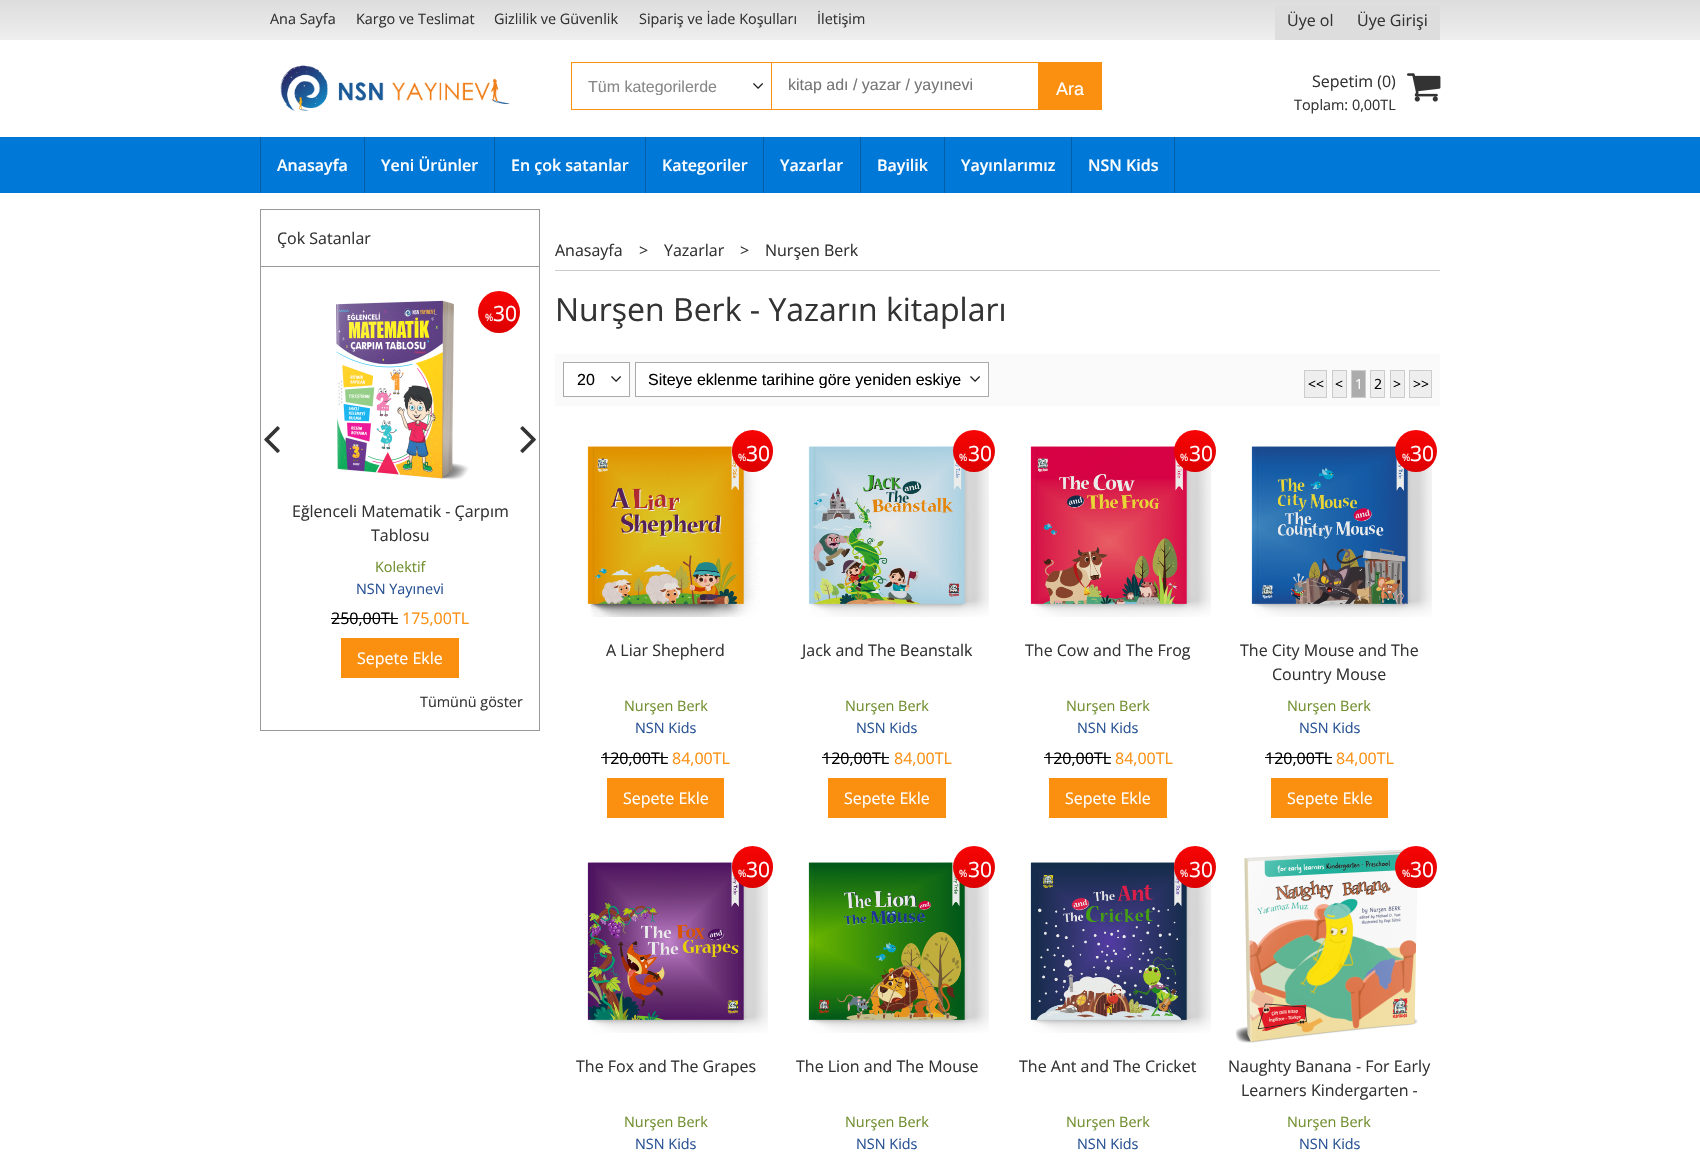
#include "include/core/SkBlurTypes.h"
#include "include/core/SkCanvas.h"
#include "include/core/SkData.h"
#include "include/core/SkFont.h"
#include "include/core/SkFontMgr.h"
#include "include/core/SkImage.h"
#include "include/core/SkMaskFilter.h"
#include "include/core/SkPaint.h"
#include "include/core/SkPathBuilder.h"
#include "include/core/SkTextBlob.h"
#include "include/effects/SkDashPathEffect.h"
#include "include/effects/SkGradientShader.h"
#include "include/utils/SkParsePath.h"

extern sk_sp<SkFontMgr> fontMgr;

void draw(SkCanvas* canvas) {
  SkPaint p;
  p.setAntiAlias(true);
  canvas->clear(SK_ColorWHITE);
  {
    const SkColor colors[] = {SkColorSetRGB(221, 221, 221), SkColorSetRGB(238, 238, 238)};
    const float stops[] = {0, 1};
    const SkPoint ends[] = {{850, 0}, {850, 40}};
    p.setShader(SkGradientShader::MakeLinear(ends, colors, stops, 2, SkTileMode::kClamp));
    p.setAlpha(255);
  }
  canvas->drawRect(SkRect::MakeLTRB(0, 0, 1700, 40), p);
  p.setShader(nullptr);
  p.setColor(SkColorSetRGB(221, 221, 221));
  canvas->drawRect(SkRect::MakeLTRB(1275, 6, 1440, 40), p);
  canvas->drawImageRect(SkImages::DeferredFromEncodedData(SkData::MakeFromFileName("images/1.png")), SkRect::MakeLTRB(279, 65, 510, 111), SkSamplingOptions());
  p.setStyle(SkPaint::kStroke_Style);
  p.setStrokeWidth(1);
  p.setColor(SkColorSetRGB(251, 143, 16));
  canvas->drawRect(SkRect::MakeLTRB(571.5f, 62.5f, 1101.5f, 109.5f), p);
  canvas->drawImageRect(SkImages::DeferredFromEncodedData(SkData::MakeFromFileName("images/2.png")), SkRect::MakeLTRB(753, 83, 763, 89), SkSamplingOptions());
  p.setStyle(SkPaint::kFill_Style);
  canvas->drawRect(SkRect::MakeLTRB(771, 63, 772, 109), p);
  canvas->drawRect(SkRect::MakeLTRB(1038, 63, 1101, 109), p);
  canvas->drawImageRect(SkImages::DeferredFromEncodedData(SkData::MakeFromFileName("images/3.png")), SkRect::MakeLTRB(1407, 73, 1441, 102), SkSamplingOptions());
  p.setColor(SkColorSetRGB(0, 120, 215));
  canvas->drawRect(SkRect::MakeLTRB(0, 137, 1700, 193), p);
  p.setColor(SkColorSetRGB(4, 94, 165));
  canvas->drawRect(SkRect::MakeLTRB(260, 137, 261, 193), p);
  canvas->drawRect(SkRect::MakeLTRB(364, 137, 365, 193), p);
  canvas->drawRect(SkRect::MakeLTRB(494, 137, 495, 193), p);
  canvas->drawRect(SkRect::MakeLTRB(645, 137, 646, 193), p);
  canvas->drawRect(SkRect::MakeLTRB(763, 137, 764, 193), p);
  canvas->drawRect(SkRect::MakeLTRB(860, 137, 861, 193), p);
  canvas->drawRect(SkRect::MakeLTRB(944, 137, 945, 193), p);
  canvas->drawRect(SkRect::MakeLTRB(1174, 137, 1175, 193), p);
  canvas->drawRect(SkRect::MakeLTRB(1071, 137, 1072, 193), p);
  p.setStyle(SkPaint::kStroke_Style);
  p.setColor(SkColorSetRGB(153, 153, 153));
  canvas->drawRect(SkRect::MakeLTRB(260.5f, 209.5f, 539.5f, 730.5f), p);
  p.setStyle(SkPaint::kFill_Style);
  canvas->drawRect(SkRect::MakeLTRB(261, 266, 539, 267), p);
  canvas->drawImageRect(SkImages::DeferredFromEncodedData(SkData::MakeFromFileName("images/4.png")), SkRect::MakeLTRB(264, 426, 280, 453), SkSamplingOptions());
  canvas->drawImageRect(SkImages::DeferredFromEncodedData(SkData::MakeFromFileName("images/5.png")), SkRect::MakeLTRB(336, 300, 469, 480), SkSamplingOptions());
  {
    const SkColor colors[] = {SkColorSetRGB(247, 5, 5), SkColorSetRGB(221, 0, 0)};
    const float stops[] = {0, 1};
    const SkPoint ends[] = {{499, 291}, {499, 333}};
    p.setShader(SkGradientShader::MakeLinear(ends, colors, stops, 2, SkTileMode::kClamp));
    p.setAlpha(255);
  }
  canvas->drawCircle(499, 312, 21, p);
  p.setShader(nullptr);
  p.setColor(SK_ColorBLACK);
  canvas->drawRect(SkRect::MakeLTRB(331, 618, 381, 619), p);
  canvas->drawRect(SkRect::MakeLTRB(381, 618, 398, 619), p);
  p.setColor(SkColorSetRGB(251, 143, 16));
  canvas->drawRect(SkRect::MakeLTRB(341, 638, 459, 678), p);
  canvas->drawImageRect(SkImages::DeferredFromEncodedData(SkData::MakeFromFileName("images/6.png")), SkRect::MakeLTRB(520, 426, 536, 453), SkSamplingOptions());
  p.setColor(SkColorSetRGB(204, 204, 204));
  canvas->drawRect(SkRect::MakeLTRB(555, 270, 1440, 271), p);
  p.setColor(SkColorSetRGB(250, 250, 250));
  canvas->drawRect(SkRect::MakeLTRB(555, 354, 1440, 406), p);
  p.setColor(SK_ColorWHITE);
  canvas->drawRect(SkRect::MakeLTRB(564, 363, 629, 396), p);
  canvas->drawImageRect(SkImages::DeferredFromEncodedData(SkData::MakeFromFileName("images/2.png")), SkRect::MakeLTRB(611, 376, 621, 382), SkSamplingOptions());
  p.setStyle(SkPaint::kStroke_Style);
  p.setColor(SkColorSetRGB(170, 170, 170));
  canvas->drawRect(SkRect::MakeLTRB(563.5f, 362.5f, 629.5f, 396.5f), p);
  p.setStyle(SkPaint::kFill_Style);
  p.setColor(SK_ColorWHITE);
  canvas->drawRect(SkRect::MakeLTRB(636, 363, 988, 396), p);
  canvas->drawImageRect(SkImages::DeferredFromEncodedData(SkData::MakeFromFileName("images/2.png")), SkRect::MakeLTRB(970, 376, 980, 382), SkSamplingOptions());
  p.setStyle(SkPaint::kStroke_Style);
  p.setColor(SkColorSetRGB(170, 170, 170));
  canvas->drawRect(SkRect::MakeLTRB(635.5f, 362.5f, 988.5f, 396.5f), p);
  p.setStyle(SkPaint::kFill_Style);
  p.setColor(SkColorSetRGB(238, 238, 238));
  canvas->drawRect(SkRect::MakeLTRB(1304.5f, 370.5f, 1326.5f, 397.5f), p);
  p.setStyle(SkPaint::kStroke_Style);
  p.setColor(SkColorSetRGB(204, 204, 204));
  canvas->drawRect(SkRect::MakeLTRB(1304.5f, 370.5f, 1326.5f, 397.5f), p);
  p.setStyle(SkPaint::kFill_Style);
  p.setColor(SkColorSetRGB(238, 238, 238));
  canvas->drawRect(SkRect::MakeLTRB(1332.5f, 370.5f, 1346.5f, 397.5f), p);
  p.setStyle(SkPaint::kStroke_Style);
  p.setColor(SkColorSetRGB(204, 204, 204));
  canvas->drawRect(SkRect::MakeLTRB(1332.5f, 370.5f, 1346.5f, 397.5f), p);
  p.setStyle(SkPaint::kFill_Style);
  p.setColor(SkColorSetRGB(172, 172, 172));
  canvas->drawRect(SkRect::MakeLTRB(1351.5f, 370.5f, 1365.5f, 397.5f), p);
  p.setStyle(SkPaint::kStroke_Style);
  p.setColor(SkColorSetRGB(204, 204, 204));
  canvas->drawRect(SkRect::MakeLTRB(1351.5f, 370.5f, 1365.5f, 397.5f), p);
  p.setStyle(SkPaint::kFill_Style);
  p.setColor(SkColorSetRGB(238, 238, 238));
  canvas->drawRect(SkRect::MakeLTRB(1370.5f, 370.5f, 1384.5f, 397.5f), p);
  p.setStyle(SkPaint::kStroke_Style);
  p.setColor(SkColorSetRGB(204, 204, 204));
  canvas->drawRect(SkRect::MakeLTRB(1370.5f, 370.5f, 1384.5f, 397.5f), p);
  p.setStyle(SkPaint::kFill_Style);
  p.setColor(SkColorSetRGB(238, 238, 238));
  canvas->drawRect(SkRect::MakeLTRB(1390.5f, 370.5f, 1404.5f, 397.5f), p);
  p.setStyle(SkPaint::kStroke_Style);
  p.setColor(SkColorSetRGB(204, 204, 204));
  canvas->drawRect(SkRect::MakeLTRB(1390.5f, 370.5f, 1404.5f, 397.5f), p);
  p.setStyle(SkPaint::kFill_Style);
  p.setColor(SkColorSetRGB(238, 238, 238));
  canvas->drawRect(SkRect::MakeLTRB(1409.5f, 370.5f, 1431.5f, 397.5f), p);
  p.setStyle(SkPaint::kStroke_Style);
  p.setColor(SkColorSetRGB(204, 204, 204));
  canvas->drawRect(SkRect::MakeLTRB(1409.5f, 370.5f, 1431.5f, 397.5f), p);
  canvas->drawImageRect(SkImages::DeferredFromEncodedData(SkData::MakeFromFileName("images/7.png")), SkRect::MakeLTRB(587, 446, 760, 617), SkSamplingOptions());
  p.setStyle(SkPaint::kFill_Style);
  {
    const SkColor colors[] = {SkColorSetRGB(247, 5, 5), SkColorSetRGB(221, 0, 0)};
    const float stops[] = {0, 1};
    const SkPoint ends[] = {{753, 430}, {753, 472}};
    p.setShader(SkGradientShader::MakeLinear(ends, colors, stops, 2, SkTileMode::kClamp));
    p.setAlpha(255);
  }
  canvas->drawRoundRect(SkRect::MakeLTRB(732, 430, 773, 472), 20.5f, 20.5f, p);
  p.setShader(nullptr);
  p.setColor(SK_ColorBLACK);
  canvas->drawRect(SkRect::MakeLTRB(601, 757, 668, 758), p);
  p.setColor(SkColorSetRGB(251, 143, 16));
  canvas->drawRect(SkRect::MakeLTRB(607, 778, 724, 818), p);
  canvas->drawImageRect(SkImages::DeferredFromEncodedData(SkData::MakeFromFileName("images/8.png")), SkRect::MakeLTRB(808, 446, 989, 617), SkSamplingOptions());
  {
    const SkColor colors[] = {SkColorSetRGB(247, 5, 5), SkColorSetRGB(221, 0, 0)};
    const float stops[] = {0, 1};
    const SkPoint ends[] = {{974, 430}, {974, 472}};
    p.setShader(SkGradientShader::MakeLinear(ends, colors, stops, 2, SkTileMode::kClamp));
    p.setAlpha(255);
  }
  canvas->drawCircle(974, 451, 21, p);
  p.setShader(nullptr);
  p.setColor(SK_ColorBLACK);
  canvas->drawRect(SkRect::MakeLTRB(822, 757, 889, 758), p);
  p.setColor(SkColorSetRGB(251, 143, 16));
  canvas->drawRect(SkRect::MakeLTRB(828, 778, 946, 818), p);
  canvas->drawImageRect(SkImages::DeferredFromEncodedData(SkData::MakeFromFileName("images/9.png")), SkRect::MakeLTRB(1030, 446, 1211, 617), SkSamplingOptions());
  {
    const SkColor colors[] = {SkColorSetRGB(247, 5, 5), SkColorSetRGB(221, 0, 0)};
    const float stops[] = {0, 1};
    const SkPoint ends[] = {{1195, 430}, {1195, 472}};
    p.setShader(SkGradientShader::MakeLinear(ends, colors, stops, 2, SkTileMode::kClamp));
    p.setAlpha(255);
  }
  canvas->drawCircle(1195, 451, 21, p);
  p.setShader(nullptr);
  p.setColor(SK_ColorBLACK);
  canvas->drawRect(SkRect::MakeLTRB(1044, 757, 1111, 758), p);
  p.setColor(SkColorSetRGB(251, 143, 16));
  canvas->drawRect(SkRect::MakeLTRB(1049, 778, 1167, 818), p);
  canvas->drawImageRect(SkImages::DeferredFromEncodedData(SkData::MakeFromFileName("images/10.png")), SkRect::MakeLTRB(1251, 446, 1432, 617), SkSamplingOptions());
  {
    const SkColor colors[] = {SkColorSetRGB(247, 5, 5), SkColorSetRGB(221, 0, 0)};
    const float stops[] = {0, 1};
    const SkPoint ends[] = {{1416, 430}, {1416, 472}};
    p.setShader(SkGradientShader::MakeLinear(ends, colors, stops, 2, SkTileMode::kClamp));
    p.setAlpha(255);
  }
  canvas->drawCircle(1416, 451, 21, p);
  p.setShader(nullptr);
  p.setColor(SK_ColorBLACK);
  canvas->drawRect(SkRect::MakeLTRB(1265, 757, 1315, 758), p);
  canvas->drawRect(SkRect::MakeLTRB(1315, 757, 1332, 758), p);
  p.setColor(SkColorSetRGB(251, 143, 16));
  canvas->drawRect(SkRect::MakeLTRB(1271, 778, 1388, 818), p);
  canvas->drawImageRect(SkImages::DeferredFromEncodedData(SkData::MakeFromFileName("images/11.png")), SkRect::MakeLTRB(587, 862, 768, 1033), SkSamplingOptions());
  {
    const SkColor colors[] = {SkColorSetRGB(247, 5, 5), SkColorSetRGB(221, 0, 0)};
    const float stops[] = {0, 1};
    const SkPoint ends[] = {{753, 846}, {753, 888}};
    p.setShader(SkGradientShader::MakeLinear(ends, colors, stops, 2, SkTileMode::kClamp));
    p.setAlpha(255);
  }
  canvas->drawRoundRect(SkRect::MakeLTRB(732, 846, 773, 888), 20.5f, 20.5f, p);
  canvas->drawImageRect(SkImages::DeferredFromEncodedData(SkData::MakeFromFileName("images/12.png")), SkRect::MakeLTRB(808, 862, 989, 1033), SkSamplingOptions());
  {
    const SkColor colors[] = {SkColorSetRGB(247, 5, 5), SkColorSetRGB(221, 0, 0)};
    const float stops[] = {0, 1};
    const SkPoint ends[] = {{974, 846}, {974, 888}};
    p.setShader(SkGradientShader::MakeLinear(ends, colors, stops, 2, SkTileMode::kClamp));
    p.setAlpha(255);
  }
  canvas->drawCircle(974, 867, 21, p);
  canvas->drawImageRect(SkImages::DeferredFromEncodedData(SkData::MakeFromFileName("images/13.png")), SkRect::MakeLTRB(1030, 862, 1211, 1033), SkSamplingOptions());
  {
    const SkColor colors[] = {SkColorSetRGB(247, 5, 5), SkColorSetRGB(221, 0, 0)};
    const float stops[] = {0, 1};
    const SkPoint ends[] = {{1195, 846}, {1195, 888}};
    p.setShader(SkGradientShader::MakeLinear(ends, colors, stops, 2, SkTileMode::kClamp));
    p.setAlpha(255);
  }
  canvas->drawCircle(1195, 867, 21, p);
  canvas->drawImageRect(SkImages::DeferredFromEncodedData(SkData::MakeFromFileName("images/14.png")), SkRect::MakeLTRB(1236, 849, 1418, 1043), SkSamplingOptions());
  {
    const SkColor colors[] = {SkColorSetRGB(247, 5, 5), SkColorSetRGB(221, 0, 0)};
    const float stops[] = {0, 1};
    const SkPoint ends[] = {{1416, 846}, {1416, 888}};
    p.setShader(SkGradientShader::MakeLinear(ends, colors, stops, 2, SkTileMode::kClamp));
    p.setAlpha(255);
  }
  canvas->drawCircle(1416, 867, 21, p);
  SkFont font1(fontMgr->matchFamilyStyle("Open Sans", SkFontStyle::Normal()), 14.4f);
  font1.setSubpixel(true);
  p.setShader(nullptr);
  p.setColor(SkColorSetRGB(51, 51, 51));
  canvas->drawString("Ana Sayfa", 270, 24, font1, p);
  canvas->drawString("Kargo ve Teslimat", 356, 24, font1, p);
  canvas->drawString("Gizlilik ve Güvenlik", 494, 24, font1, p);
  canvas->drawString("Sipariş ve İade Koşulları", 639, 24, font1, p);
  canvas->drawString("İletişim", 817, 24, font1, p);
  SkFont font2(fontMgr->matchFamilyStyle("Open Sans", SkFontStyle::Normal()), 16);
  font2.setSubpixel(true);
  canvas->drawString("Üye ol", 1287, 26, font2, p);
  canvas->drawString("Üye Girişi", 1357, 26, font2, p);
  canvas->save();
  canvas->clipRect(SkRect::MakeLTRB(588, 78, 745, 95));
  SkFont font3(fontMgr->matchFamilyStyle("Liberation Sans", SkFontStyle::Normal()), 16);
  font3.setSubpixel(true);
  p.setColor(SkColorSetRGB(136, 136, 136));
  canvas->drawString("Tüm kategorilerde", 588, 92, font3, p);
  canvas->restore();
  p.setColor(SkColorSetRGB(117, 117, 117));
  canvas->drawString("kitap adı / yazar / yayınevi", 788, 90, font3, p);
  SkFont font4(fontMgr->matchFamilyStyle("Liberation Sans", SkFontStyle::Normal()), 18);
  font4.setSubpixel(true);
  p.setColor(SK_ColorWHITE);
  canvas->drawString("Ara", 1056, 95, font4, p);
  p.setColor(SkColorSetRGB(51, 51, 51));
  canvas->drawString("Sepetim (0)", 1312, 87, font2, p);
  canvas->drawString("Toplam: 0,00TL", 1294, 110, font1, p);
  SkFont font5(fontMgr->matchFamilyStyle("Open Sans", SkFontStyle(600, SkFontStyle::kNormal_Width, SkFontStyle::kUpright_Slant)), 16);
  font5.setSubpixel(true);
  p.setColor(SK_ColorWHITE);
  canvas->drawString("Anasayfa", 277, 171, font5, p);
  canvas->drawString("Yeni Ürünler", 381, 171, font5, p);
  canvas->drawString("En çok satanlar", 511, 171, font5, p);
  canvas->drawString("Kategoriler", 662, 171, font5, p);
  canvas->drawString("Yazarlar", 780, 171, font5, p);
  canvas->drawString("Bayilik", 877, 171, font5, p);
  canvas->drawString("Yayınlarımız", 961, 171, font5, p);
  canvas->drawString("NSN Kids", 1088, 171, font5, p);
  p.setColor(SkColorSetRGB(51, 51, 51));
  canvas->drawString("Çok Satanlar", 277, 244, font2, p);
  SkFont font6(fontMgr->matchFamilyStyle("Open Sans", SkFontStyle::Normal()), 10);
  font6.setSubpixel(true);
  p.setColor(SK_ColorWHITE);
  canvas->drawString("%", 485, 321, font6, p);
  SkFont font7(fontMgr->matchFamilyStyle("Open Sans", SkFontStyle::Normal()), 21);
  font7.setSubpixel(true);
  canvas->drawString("30", 493, 321, font7, p);
  p.setColor(SkColorSetRGB(51, 51, 51));
  canvas->drawString("Eğlenceli Matematik - Çarpım", 292, 517, font2, p);
  canvas->drawString("Tablosu", 371, 541, font2, p);
  p.setColor(SkColorSetRGB(113, 143, 47));
  canvas->drawString("Kolektif", 375, 572, font1, p);
  p.setColor(SkColorSetRGB(40, 82, 148));
  canvas->drawString("NSN Yayınevi", 356, 594, font1, p);
  p.setColor(SK_ColorBLACK);
  canvas->drawString("250,00", 331, 624, font2, p);
  canvas->drawString("TL", 381, 624, font2, p);
  p.setColor(SkColorSetRGB(251, 143, 16));
  canvas->drawString("175,00TL", 402, 624, font2, p);
  p.setColor(SK_ColorWHITE);
  canvas->drawString("Sepete Ekle", 357, 664, font2, p);
  p.setColor(SkColorSetRGB(51, 51, 51));
  canvas->drawString("Tümünü göster", 420, 707, font1, p);
  canvas->drawString("Anasayfa", 555, 256, font2, p);
  canvas->drawString(">", 639, 256, font2, p);
  canvas->drawString("Yazarlar", 664, 256, font2, p);
  canvas->drawString(">", 740, 256, font2, p);
  canvas->drawString("Nurşen Berk", 765, 256, font2, p);
  SkFont font8(fontMgr->matchFamilyStyle("Open Sans", SkFontStyle::Normal()), 32);
  font8.setSubpixel(true);
  canvas->drawString("Nurşen Berk - Yazarın kitapları", 555, 321, font8, p);
  p.setColor(SK_ColorBLACK);
  canvas->drawString("20", 577, 385, font3, p);
  canvas->save();
  canvas->clipRect(SkRect::MakeLTRB(648, 371, 962, 388));
  canvas->drawString("Siteye eklenme tarihine göre yeniden eskiye", 648, 385, font3, p);
  canvas->restore();
  SkFont font9(fontMgr->matchFamilyStyle("Open Sans", SkFontStyle::Normal()), 14);
  font9.setSubpixel(true);
  canvas->drawString("<<", 1308, 389, font9, p);
  canvas->drawString("<", 1335, 389, font9, p);
  p.setColor(SK_ColorWHITE);
  canvas->drawString("1", 1355, 389, font9, p);
  p.setColor(SK_ColorBLACK);
  canvas->drawString("2", 1374, 389, font9, p);
  canvas->drawString(">", 1393, 389, font9, p);
  canvas->drawString(">>", 1413, 389, font9, p);
  p.setColor(SK_ColorWHITE);
  canvas->drawString("%", 738, 461, font6, p);
  canvas->drawString("30", 746, 461, font7, p);
  p.setColor(SkColorSetRGB(51, 51, 51));
  canvas->drawString("A Liar Shepherd", 606, 656, font2, p);
  p.setColor(SkColorSetRGB(113, 143, 47));
  canvas->drawString("Nurşen Berk", 624, 711, font1, p);
  p.setColor(SkColorSetRGB(40, 82, 148));
  canvas->drawString("NSN Kids", 635, 733, font1, p);
  p.setColor(SK_ColorBLACK);
  canvas->drawString("120,00TL", 601, 764, font2, p);
  p.setColor(SkColorSetRGB(251, 143, 16));
  canvas->drawString("84,00TL", 672, 764, font2, p);
  p.setColor(SK_ColorWHITE);
  canvas->drawString("Sepete Ekle", 623, 804, font2, p);
  canvas->drawString("%", 959, 461, font6, p);
  canvas->drawString("30", 968, 461, font7, p);
  p.setColor(SkColorSetRGB(51, 51, 51));
  canvas->drawString("Jack and The Beanstalk", 802, 656, font2, p);
  p.setColor(SkColorSetRGB(113, 143, 47));
  canvas->drawString("Nurşen Berk", 845, 711, font1, p);
  p.setColor(SkColorSetRGB(40, 82, 148));
  canvas->drawString("NSN Kids", 856, 733, font1, p);
  p.setColor(SK_ColorBLACK);
  canvas->drawString("120,00TL", 822, 764, font2, p);
  p.setColor(SkColorSetRGB(251, 143, 16));
  canvas->drawString("84,00TL", 894, 764, font2, p);
  p.setColor(SK_ColorWHITE);
  canvas->drawString("Sepete Ekle", 844, 804, font2, p);
  canvas->drawString("%", 1180, 461, font6, p);
  canvas->drawString("30", 1189, 461, font7, p);
  p.setColor(SkColorSetRGB(51, 51, 51));
  canvas->drawString("The Cow and The Frog", 1025, 656, font2, p);
  p.setColor(SkColorSetRGB(113, 143, 47));
  canvas->drawString("Nurşen Berk", 1066, 711, font1, p);
  p.setColor(SkColorSetRGB(40, 82, 148));
  canvas->drawString("NSN Kids", 1077, 733, font1, p);
  p.setColor(SK_ColorBLACK);
  canvas->drawString("120,00TL", 1044, 764, font2, p);
  p.setColor(SkColorSetRGB(251, 143, 16));
  canvas->drawString("84,00TL", 1115, 764, font2, p);
  p.setColor(SK_ColorWHITE);
  canvas->drawString("Sepete Ekle", 1065, 804, font2, p);
  canvas->drawString("%", 1402, 461, font6, p);
  canvas->drawString("30", 1410, 461, font7, p);
  p.setColor(SkColorSetRGB(51, 51, 51));
  canvas->drawString("The City Mouse and The", 1240, 656, font2, p);
  canvas->drawString("Country Mouse", 1272, 680, font2, p);
  p.setColor(SkColorSetRGB(113, 143, 47));
  canvas->drawString("Nurşen Berk", 1287, 711, font1, p);
  p.setColor(SkColorSetRGB(40, 82, 148));
  canvas->drawString("NSN Kids", 1299, 733, font1, p);
  p.setColor(SK_ColorBLACK);
  canvas->drawString("120,00", 1265, 764, font2, p);
  canvas->drawString("TL", 1315, 764, font2, p);
  p.setColor(SkColorSetRGB(251, 143, 16));
  canvas->drawString("84,00TL", 1336, 764, font2, p);
  p.setColor(SK_ColorWHITE);
  canvas->drawString("Sepete Ekle", 1287, 804, font2, p);
  canvas->drawString("%", 738, 877, font6, p);
  canvas->drawString("30", 746, 877, font7, p);
  p.setColor(SkColorSetRGB(51, 51, 51));
  canvas->drawString("The Fox and The Grapes", 576, 1072, font2, p);
  p.setColor(SkColorSetRGB(113, 143, 47));
  canvas->drawString("Nurşen Berk", 624, 1127, font1, p);
  p.setColor(SkColorSetRGB(40, 82, 148));
  canvas->drawString("NSN Kids", 635, 1149, font1, p);
  p.setColor(SK_ColorWHITE);
  canvas->drawString("%", 959, 877, font6, p);
  canvas->drawString("30", 968, 877, font7, p);
  p.setColor(SkColorSetRGB(51, 51, 51));
  canvas->drawString("The Lion and The Mouse", 796, 1072, font2, p);
  p.setColor(SkColorSetRGB(113, 143, 47));
  canvas->drawString("Nurşen Berk", 845, 1127, font1, p);
  p.setColor(SkColorSetRGB(40, 82, 148));
  canvas->drawString("NSN Kids", 856, 1149, font1, p);
  p.setColor(SK_ColorWHITE);
  canvas->drawString("%", 1180, 877, font6, p);
  canvas->drawString("30", 1189, 877, font7, p);
  p.setColor(SkColorSetRGB(51, 51, 51));
  canvas->drawString("The Ant and The Cricket", 1019, 1072, font2, p);
  p.setColor(SkColorSetRGB(113, 143, 47));
  canvas->drawString("Nurşen Berk", 1066, 1127, font1, p);
  p.setColor(SkColorSetRGB(40, 82, 148));
  canvas->drawString("NSN Kids", 1077, 1149, font1, p);
  p.setColor(SK_ColorWHITE);
  canvas->drawString("%", 1402, 877, font6, p);
  canvas->drawString("30", 1410, 877, font7, p);
  p.setColor(SkColorSetRGB(51, 51, 51));
  canvas->drawString("Naughty Banana - For Early", 1228, 1072, font2, p);
  canvas->drawString("Learners Kindergarten -", 1241, 1096, font2, p);
  p.setColor(SkColorSetRGB(113, 143, 47));
  canvas->drawString("Nurşen Berk", 1287, 1127, font1, p);
  p.setColor(SkColorSetRGB(40, 82, 148));
  canvas->drawString("NSN Kids", 1299, 1149, font1, p);
}
